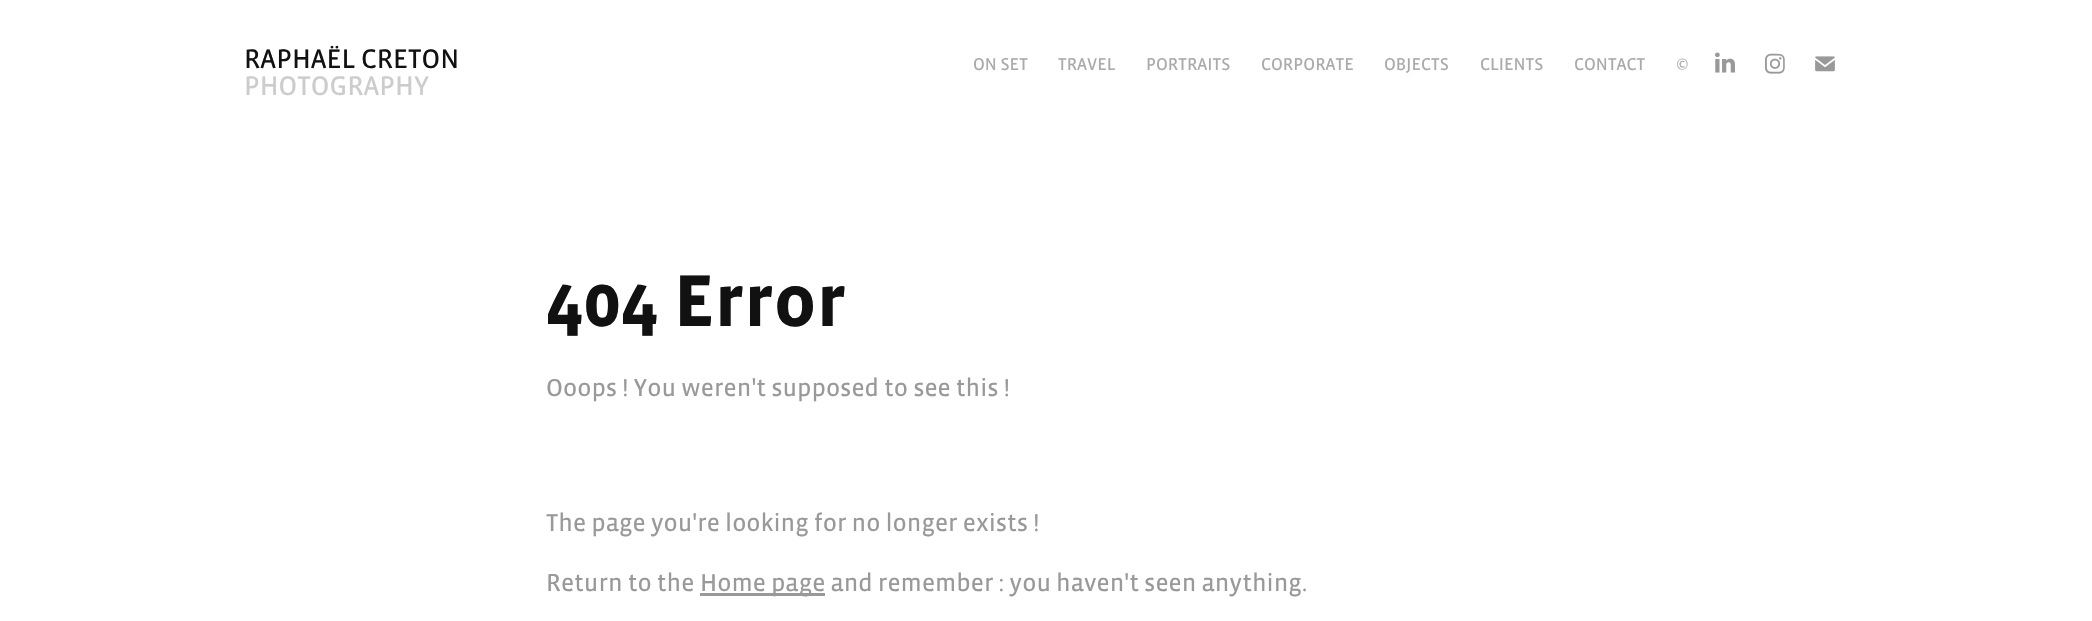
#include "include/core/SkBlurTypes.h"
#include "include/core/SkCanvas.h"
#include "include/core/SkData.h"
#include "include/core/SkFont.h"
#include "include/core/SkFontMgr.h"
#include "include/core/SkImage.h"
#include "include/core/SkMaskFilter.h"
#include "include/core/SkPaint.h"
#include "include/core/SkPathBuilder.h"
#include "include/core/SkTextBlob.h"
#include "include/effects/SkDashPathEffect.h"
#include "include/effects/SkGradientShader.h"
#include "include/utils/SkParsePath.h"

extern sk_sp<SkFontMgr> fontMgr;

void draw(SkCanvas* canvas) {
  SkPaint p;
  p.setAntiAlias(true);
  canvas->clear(SK_ColorWHITE);
  canvas->drawImageRect(SkImages::DeferredFromEncodedData(SkData::MakeFromFileName("images/1.png")), SkRect::MakeLTRB(1715, 52, 1735, 73), SkSamplingOptions());
  canvas->drawImageRect(SkImages::DeferredFromEncodedData(SkData::MakeFromFileName("images/2.png")), SkRect::MakeLTRB(1765, 53, 1785, 74), SkSamplingOptions());
  canvas->drawImageRect(SkImages::DeferredFromEncodedData(SkData::MakeFromFileName("images/3.png")), SkRect::MakeLTRB(1815, 56, 1835, 72), SkSamplingOptions());
  p.setColor(SkColorSetRGB(153, 153, 153));
  canvas->drawRect(SkRect::MakeLTRB(700, 593, 825, 596), p);
  SkFont font1(fontMgr->matchFamilyStyle("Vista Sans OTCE", SkFontStyle::Normal()), 27.5f);
  font1.setSubpixel(true);
  p.setColor(SkColorSetRGB(17, 17, 17));
  canvas->drawString("RAPHAËL CRETON", 244, 68, font1, p);
  p.setColor(SkColorSetRGB(204, 204, 204));
  canvas->drawString("PHOTOGRAPHY", 244, 95, font1, p);
  SkFont font2(fontMgr->matchFamilyStyle("Vista Sans OTCE", SkFontStyle::Normal()), 17.5f);
  font2.setSubpixel(true);
  p.setColor(SkColorSetRGB(170, 170, 170));
  canvas->drawString("ON SET", 973, 70, font2, p);
  canvas->drawString("TRAVEL", 1058, 70, font2, p);
  canvas->drawString("PORTRAITS", 1146, 70, font2, p);
  canvas->drawString("CORPORATE", 1261, 70, font2, p);
  canvas->drawString("OBJECTS", 1384, 70, font2, p);
  canvas->drawString("CLIENTS", 1480, 70, font2, p);
  canvas->drawString("CONTACT", 1574, 70, font2, p);
  canvas->drawString("©", 1676, 70, font2, p);
  SkFont font3(fontMgr->matchFamilyStyle("Vista Sans OTCE", SkFontStyle::Bold()), 75);
  font3.setSubpixel(true);
  p.setColor(SkColorSetRGB(17, 17, 17));
  canvas->drawString("404 Error", 546, 326, font3, p);
  SkFont font4(fontMgr->matchFamilyStyle("Vista Sans OTCE", SkFontStyle::Normal()), 25);
  font4.setSubpixel(true);
  p.setColor(SkColorSetRGB(153, 153, 153));
  canvas->drawString("Ooops ! You weren't supposed to see this !", 546, 396, font4, p);
  canvas->drawString("The page you're looking for no longer exists !", 546, 531, font4, p);
  canvas->drawString("Return to the", 546, 591, font4, p);
  canvas->drawString("Home page and remember : you haven't seen anything.", 700, 591, font4, p);
}
